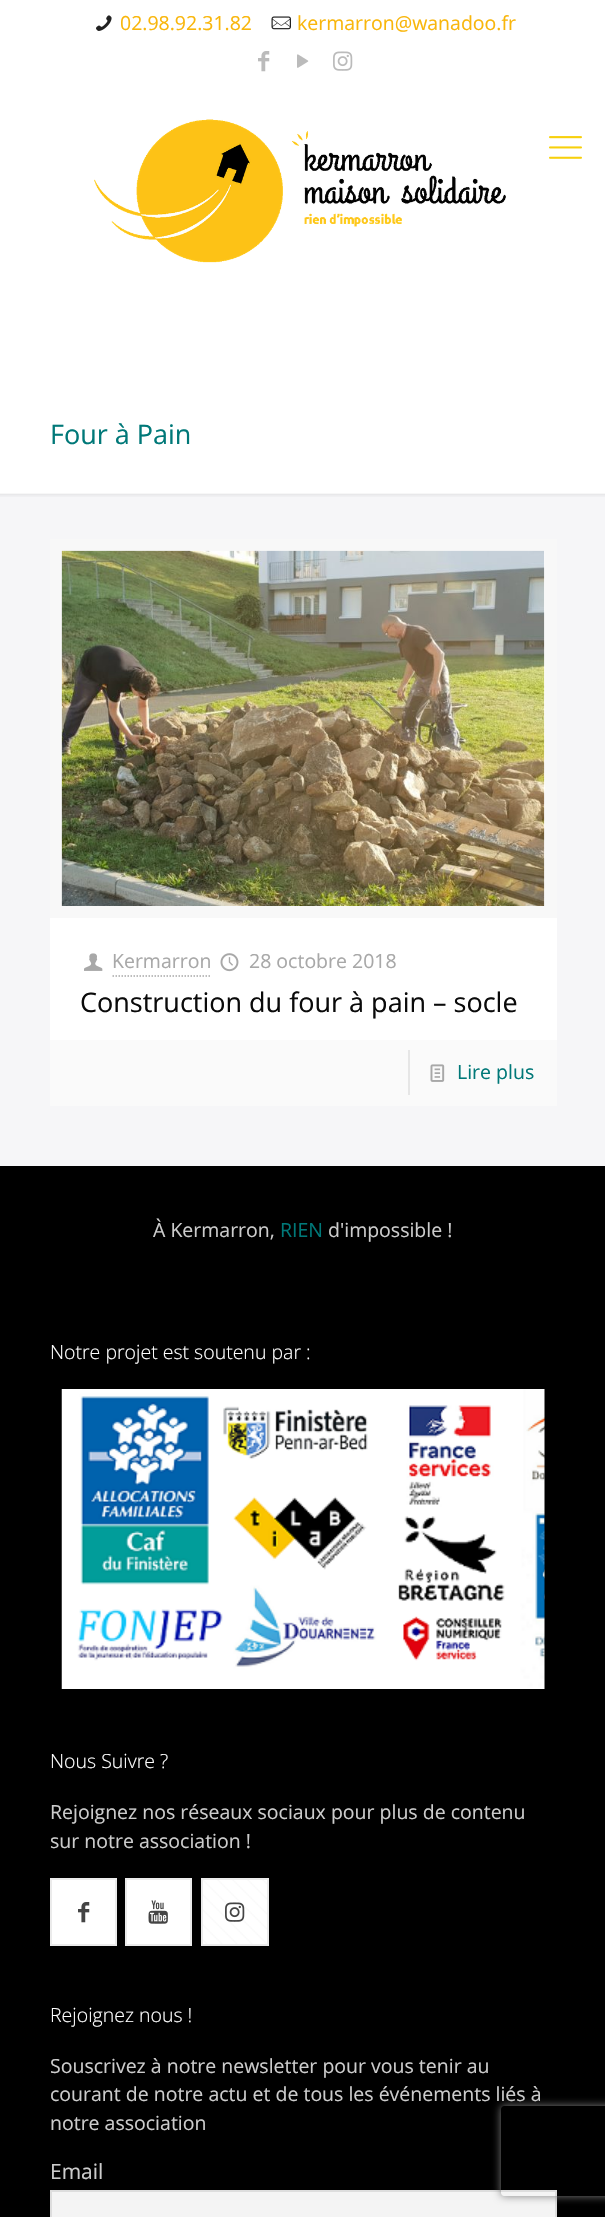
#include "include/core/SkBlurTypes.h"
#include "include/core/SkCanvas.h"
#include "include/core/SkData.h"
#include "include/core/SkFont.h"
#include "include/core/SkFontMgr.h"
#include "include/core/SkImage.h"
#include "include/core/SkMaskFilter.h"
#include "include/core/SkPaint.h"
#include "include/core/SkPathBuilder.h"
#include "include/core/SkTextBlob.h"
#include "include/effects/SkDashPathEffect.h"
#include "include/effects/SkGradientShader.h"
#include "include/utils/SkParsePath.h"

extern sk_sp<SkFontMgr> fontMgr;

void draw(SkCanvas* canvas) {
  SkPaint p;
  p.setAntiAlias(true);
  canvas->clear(SkColorSetRGB(246, 246, 248));
  p.setColor(SK_ColorWHITE);
  canvas->drawRect(SkRect::MakeLTRB(0, 0, 605, 494), p);
  canvas->drawImageRect(SkImages::DeferredFromEncodedData(SkData::MakeFromFileName("images/1.png")), SkRect::MakeLTRB(96, 15, 112, 31), SkSamplingOptions());
  canvas->drawImageRect(SkImages::DeferredFromEncodedData(SkData::MakeFromFileName("images/2.png")), SkRect::MakeLTRB(271, 16, 291, 30), SkSamplingOptions());
  canvas->drawImageRect(SkImages::DeferredFromEncodedData(SkData::MakeFromFileName("images/3.png")), SkRect::MakeLTRB(258, 51, 270, 72), SkSamplingOptions());
  canvas->drawImageRect(SkImages::DeferredFromEncodedData(SkData::MakeFromFileName("images/4.png")), SkRect::MakeLTRB(297, 54, 309, 68), SkSamplingOptions());
  canvas->drawImageRect(SkImages::DeferredFromEncodedData(SkData::MakeFromFileName("images/5.png")), SkRect::MakeLTRB(333, 51, 353, 71), SkSamplingOptions());
  canvas->drawImageRect(SkImages::DeferredFromEncodedData(SkData::MakeFromFileName("images/6.png")), SkRect::MakeLTRB(94, 119, 506, 263), SkSamplingOptions());
  canvas->drawImageRect(SkImages::DeferredFromEncodedData(SkData::MakeFromFileName("images/7.png")), SkRect::MakeLTRB(549, 136, 582, 159), SkSamplingOptions());
  canvas->drawImageRect(SkImages::DeferredFromEncodedData(SkData::MakeFromFileName("images/8.png")), SkRect::MakeLTRB(0, 493, 605, 497), SkSamplingOptions());
  canvas->drawRect(SkRect::MakeLTRB(50, 551, 557, 1040), p);
  p.setStyle(SkPaint::kStroke_Style);
  p.setStrokeWidth(12);
  p.setColor(SkColorSetRGB(248, 248, 248));
  canvas->drawRect(SkRect::MakeLTRB(56, 545, 551, 912), p);
  canvas->drawImageRect(SkImages::DeferredFromEncodedData(SkData::MakeFromFileName("images/9.png")), SkRect::MakeLTRB(61, 550, 545, 906), SkSamplingOptions());
  canvas->drawImageRect(SkImages::DeferredFromEncodedData(SkData::MakeFromFileName("images/10.png")), SkRect::MakeLTRB(84, 953, 103, 971), SkSamplingOptions());
  p.setStrokeWidth(1.5f);
  p.setColor(SkColorSetRGB(168, 168, 168));
  p.setPathEffect(SkDashPathEffect::Make({{1.5f, 1.5f}}, 0));
  canvas->drawPath(SkPathBuilder().moveTo(112.5f, 976).lineTo(211.5f, 976).detach(), p);
  p.setPathEffect(nullptr);
  canvas->drawImageRect(SkImages::DeferredFromEncodedData(SkData::MakeFromFileName("images/11.png")), SkRect::MakeLTRB(220, 953, 239, 972), SkSamplingOptions());
  p.setStyle(SkPaint::kFill_Style);
  p.setColor(SkColorSetRGB(250, 250, 250));
  canvas->drawRect(SkRect::MakeLTRB(50, 1040, 557, 1106), p);
  p.setColor(SkColorSetRGB(230, 230, 230));
  canvas->drawRect(SkRect::MakeLTRB(408, 1050, 410, 1095), p);
  canvas->drawImageRect(SkImages::DeferredFromEncodedData(SkData::MakeFromFileName("images/12.png")), SkRect::MakeLTRB(430, 1064, 445, 1082), SkSamplingOptions());
  p.setColor(SK_ColorBLACK);
  canvas->drawRect(SkRect::MakeLTRB(0, 1166, 605, 2217), p);
  canvas->drawImageRect(SkImages::DeferredFromEncodedData(SkData::MakeFromFileName("images/13.png")), SkRect::MakeLTRB(61, 1389, 545, 1689), SkSamplingOptions());
  p.setColor(SK_ColorWHITE);
  canvas->drawRect(SkRect::MakeLTRB(50, 1878, 117, 1946), p);
  p.setStyle(SkPaint::kStroke_Style);
  p.setStrokeWidth(2);
  p.setColor(SkColorSetARGB(20, 0, 0, 0));
  canvas->drawRect(SkRect::MakeLTRB(51, 1879, 116, 1945), p);
  canvas->drawImageRect(SkImages::DeferredFromEncodedData(SkData::MakeFromFileName("images/14.png")), SkRect::MakeLTRB(78, 1902, 90, 1923), SkSamplingOptions());
  p.setStyle(SkPaint::kFill_Style);
  p.setColor(SK_ColorWHITE);
  canvas->drawRect(SkRect::MakeLTRB(125, 1878, 192, 1946), p);
  p.setStyle(SkPaint::kStroke_Style);
  p.setColor(SkColorSetARGB(20, 0, 0, 0));
  canvas->drawRect(SkRect::MakeLTRB(126, 1879, 191, 1945), p);
  canvas->drawImageRect(SkImages::DeferredFromEncodedData(SkData::MakeFromFileName("images/15.png")), SkRect::MakeLTRB(148, 1900, 168, 1924), SkSamplingOptions());
  p.setStyle(SkPaint::kFill_Style);
  p.setColor(SK_ColorWHITE);
  canvas->drawRect(SkRect::MakeLTRB(201, 1878, 269, 1946), p);
  canvas->drawImageRect(SkImages::DeferredFromEncodedData(SkData::MakeFromFileName("images/16.png")), SkRect::MakeLTRB(203, 1880, 267, 1944), SkSamplingOptions());
  p.setStyle(SkPaint::kStroke_Style);
  p.setColor(SkColorSetARGB(20, 0, 0, 0));
  canvas->drawRect(SkRect::MakeLTRB(202, 1879, 268, 1945), p);
  canvas->drawImageRect(SkImages::DeferredFromEncodedData(SkData::MakeFromFileName("images/17.png")), SkRect::MakeLTRB(225, 1902, 245, 1922), SkSamplingOptions());
  p.setStyle(SkPaint::kFill_Style);
  p.setColor(SkColorSetRGB(244, 244, 244));
  canvas->drawRect(SkRect::MakeLTRB(51, 2191, 556, 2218), p);
  p.setStyle(SkPaint::kStroke_Style);
  p.setColor(SkColorSetRGB(221, 221, 221));
  canvas->drawRect(SkRect::MakeLTRB(51, 2191, 556, 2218), p);
  canvas->save();
  canvas->clipPath(SkPathBuilder(SkPathFillType::kEvenOdd).moveTo(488, 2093).lineTo(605, 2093).lineTo(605, 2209).lineTo(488, 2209).close().moveTo(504, 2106).lineTo(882, 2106).cubicTo(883.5f, 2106, 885, 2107.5f, 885, 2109).lineTo(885, 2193).cubicTo(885, 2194.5f, 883.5f, 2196, 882, 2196).lineTo(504, 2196).cubicTo(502.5f, 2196, 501, 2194.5f, 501, 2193).lineTo(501, 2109).cubicTo(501, 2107.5f, 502.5f, 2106, 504, 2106).close().detach(), true);
  p.setStyle(SkPaint::kFill_Style);
  p.setColor(SkColorSetRGB(128, 128, 128));
  p.setMaskFilter(SkMaskFilter::MakeBlur(kNormal_SkBlurStyle, 4));
  canvas->drawRoundRect(SkRect::MakeLTRB(501, 2106, 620, 2196), 3, 3, p);
  p.setMaskFilter(nullptr);
  canvas->restore();
  SkFont font1(fontMgr->matchFamilyStyle("Open Sans", SkFontStyle::Normal()), 19.5f);
  font1.setSubpixel(true);
  p.setColor(SkColorSetRGB(249, 182, 11));
  canvas->drawString("02.98.92.31.82", 120, 30, font1, p);
  canvas->drawString("kermarron@wanadoo.fr", 297, 30, font1, p);
  SkFont font2(fontMgr->matchFamilyStyle("Open Sans", SkFontStyle::Normal()), 27);
  font2.setSubpixel(true);
  p.setColor(SkColorSetRGB(0, 120, 120));
  canvas->drawString("Four à Pain", 50, 444, font2, p);
  p.setColor(SkColorSetRGB(168, 168, 168));
  canvas->drawString("Kermarron", 112, 968, font1, p);
  canvas->drawString("28 octobre 2018", 249, 968, font1, p);
  p.setColor(SkColorSetRGB(10, 10, 10));
  canvas->drawString("Construction du four à pain – socle", 80, 1012, font2, p);
  p.setColor(SkColorSetRGB(0, 120, 120));
  canvas->drawString("Lire plus", 457, 1079, font1, p);
  p.setColor(SkColorSetRGB(204, 204, 204));
  canvas->drawString("À Kermarron,", 153, 1237, font1, p);
  p.setColor(SkColorSetRGB(0, 120, 120));
  canvas->drawString("RIEN", 280, 1237, font1, p);
  p.setColor(SkColorSetRGB(204, 204, 204));
  canvas->drawString("d'impossible !", 328, 1237, font1, p);
  SkFont font3(fontMgr->matchFamilyStyle("Open Sans", SkFontStyle(300, SkFontStyle::kNormal_Width, SkFontStyle::kUpright_Slant)), 19.5f);
  font3.setSubpixel(true);
  p.setColor(SK_ColorWHITE);
  canvas->drawString("Notre projet est soutenu par :", 50, 1359, font3, p);
  canvas->drawString("Nous Suivre ?", 50, 1768, font3, p);
  p.setColor(SkColorSetRGB(204, 204, 204));
  canvas->drawString("Rejoignez nos réseaux sociaux pour plus de contenu", 50, 1819, font1, p);
  canvas->drawString("sur notre association !", 50, 1848, font1, p);
  p.setColor(SK_ColorWHITE);
  canvas->drawString("Rejoignez nous !", 50, 2022, font3, p);
  p.setColor(SkColorSetRGB(204, 204, 204));
  canvas->drawString("Souscrivez à notre newsletter pour vous tenir au", 50, 2073, font1, p);
  canvas->drawString("courant de notre actu et de tous les événements liés à", 50, 2101, font1, p);
  canvas->drawString("notre association", 50, 2130, font1, p);
  SkFont font4(fontMgr->matchFamilyStyle("Open Sans", SkFontStyle::Normal()), 21);
  font4.setSubpixel(true);
  canvas->drawString("Email", 50, 2179, font4, p);
}
